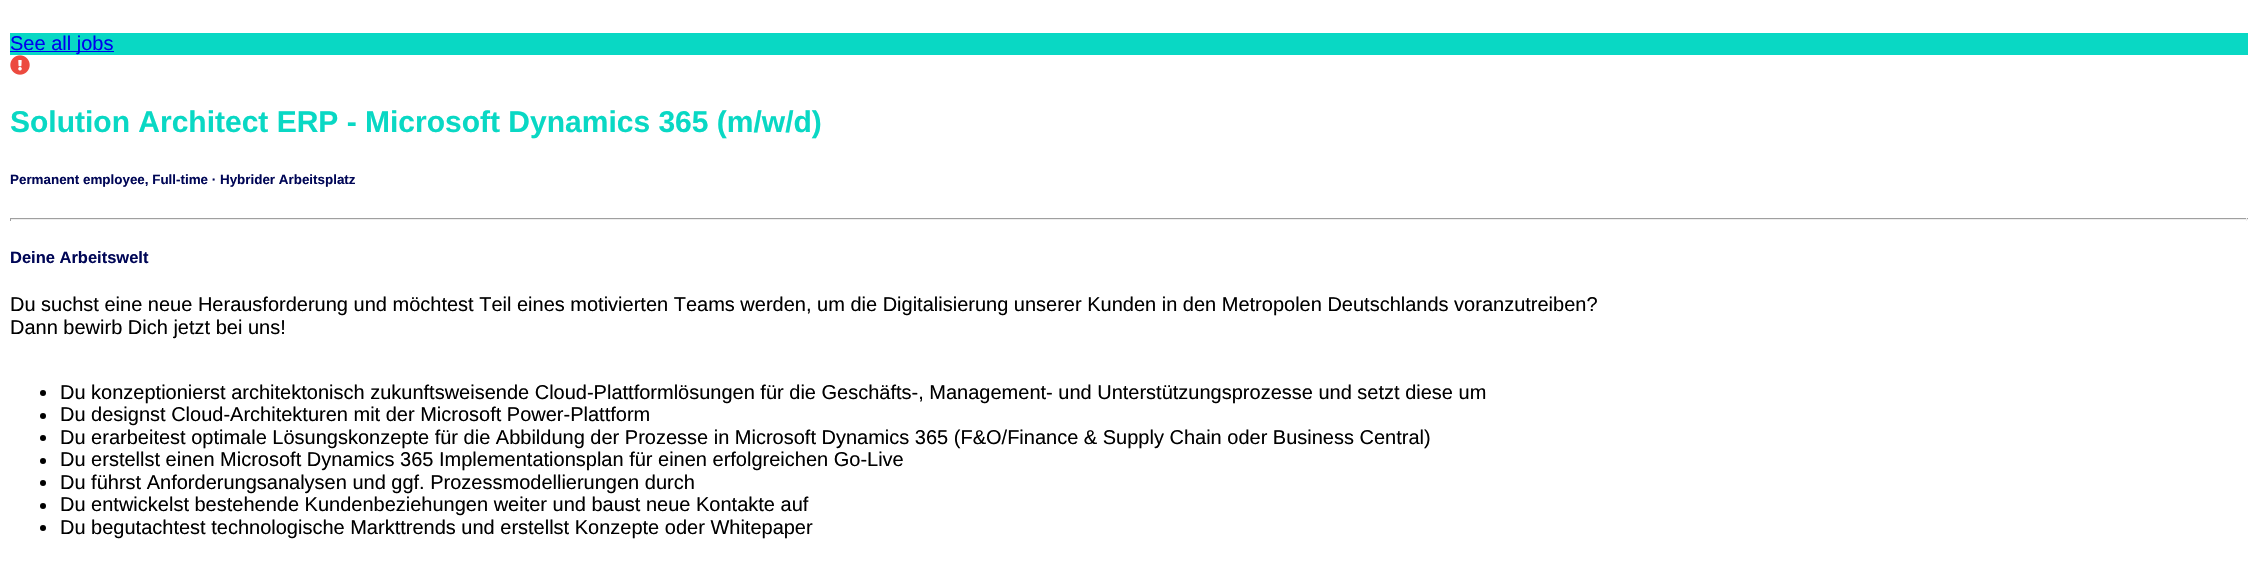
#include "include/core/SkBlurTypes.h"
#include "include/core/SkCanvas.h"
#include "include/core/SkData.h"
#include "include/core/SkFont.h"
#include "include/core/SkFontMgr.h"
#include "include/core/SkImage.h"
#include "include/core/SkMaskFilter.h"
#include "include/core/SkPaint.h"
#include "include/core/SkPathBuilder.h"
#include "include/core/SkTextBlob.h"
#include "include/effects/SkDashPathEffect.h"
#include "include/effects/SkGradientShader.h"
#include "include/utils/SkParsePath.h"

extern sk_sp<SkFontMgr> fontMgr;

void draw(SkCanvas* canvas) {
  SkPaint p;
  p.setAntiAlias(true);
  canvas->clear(SK_ColorWHITE);
  p.setColor(SkColorSetRGB(9, 216, 196));
  canvas->drawRect(SkRect::MakeLTRB(10, 33, 2248, 55), p);
  p.setColor(SkColorSetRGB(0, 0, 238));
  canvas->drawRect(SkRect::MakeLTRB(10, 51, 114, 52), p);
  canvas->drawImageRect(SkImages::DeferredFromEncodedData(SkData::MakeFromFileName("images/1.png")), SkRect::MakeLTRB(10, 55, 30, 75), SkSamplingOptions());
  p.setColor(SkColorSetRGB(159, 159, 159));
  canvas->drawRect(SkRect::MakeLTRB(10, 218, 2248, 219), p);
  p.setColor(SkColorSetRGB(238, 238, 238));
  canvas->drawRect(SkRect::MakeLTRB(2246, 218, 2247, 221), p);
  canvas->drawRect(SkRect::MakeLTRB(10, 219, 2248, 220), p);
  p.setColor(SkColorSetRGB(159, 159, 159));
  canvas->drawRect(SkRect::MakeLTRB(10, 218, 11, 221), p);
  p.setColor(SK_ColorBLACK);
  canvas->drawCircle(43, 393, 3, p);
  canvas->drawCircle(43, 416, 3, p);
  canvas->drawCircle(43, 438, 3, p);
  canvas->drawCircle(43, 461, 3, p);
  canvas->drawCircle(43, 483, 3, p);
  canvas->drawCircle(43, 506, 3, p);
  canvas->drawCircle(43, 528, 3, p);
  SkFont font1(fontMgr->matchFamilyStyle("Liberation Sans", SkFontStyle::Normal()), 20);
  font1.setSubpixel(true);
  p.setColor(SkColorSetRGB(0, 0, 238));
  canvas->drawString("See all jobs", 10, 50, font1, p);
  SkFont font2(fontMgr->matchFamilyStyle("Liberation Sans", SkFontStyle::Bold()), 30);
  font2.setSubpixel(true);
  p.setColor(SkColorSetRGB(9, 216, 196));
  canvas->drawString("Solution Architect ERP - Microsoft Dynamics 365 (m/w/d)", 10, 132, font2, p);
  SkFont font3(fontMgr->matchFamilyStyle("Liberation Sans", SkFontStyle::Bold()), 13.4f);
  font3.setSubpixel(true);
  p.setColor(SkColorSetRGB(0, 6, 86));
  canvas->drawString("Permanent employee, Full-time · Hybrider Arbeitsplatz", 10, 184, font3, p);
  SkFont font4(fontMgr->matchFamilyStyle("Liberation Sans", SkFontStyle::Bold()), 16.5f);
  font4.setSubpixel(true);
  canvas->drawString("Deine Arbeitswelt", 10, 263, font4, p);
  p.setColor(SK_ColorBLACK);
  canvas->drawString("Du suchst eine neue Herausforderung und möchtest Teil eines motivierten Teams werden, um die Digitalisierung unserer Kunden in den Metropolen Deutschlands voranzutreiben?", 10, 311, font1, p);
  canvas->drawString("Dann bewirb Dich jetzt bei uns!", 10, 334, font1, p);
  canvas->drawString("Du konzeptionierst architektonisch zukunftsweisende Cloud-Plattformlösungen für die Geschäfts-, Management- und Unterstützungsprozesse und setzt diese um", 60, 399, font1, p);
  canvas->drawString("Du designst Cloud-Architekturen mit der Microsoft Power-Plattform", 60, 421, font1, p);
  canvas->drawString("Du erarbeitest optimale Lösungskonzepte für die Abbildung der Prozesse in Microsoft Dynamics 365 (F&O/Finance & Supply Chain oder Business Central)", 60, 444, font1, p);
  canvas->drawString("Du erstellst einen Microsoft Dynamics 365 Implementationsplan für einen erfolgreichen Go-Live", 60, 466, font1, p);
  canvas->drawString("Du führst Anforderungsanalysen und ggf. Prozessmodellierungen durch", 60, 489, font1, p);
  canvas->drawString("Du entwickelst bestehende Kundenbeziehungen weiter und baust neue Kontakte auf", 60, 511, font1, p);
  canvas->drawString("Du begutachtest technologische Markttrends und erstellst Konzepte oder Whitepaper", 60, 534, font1, p);
}
